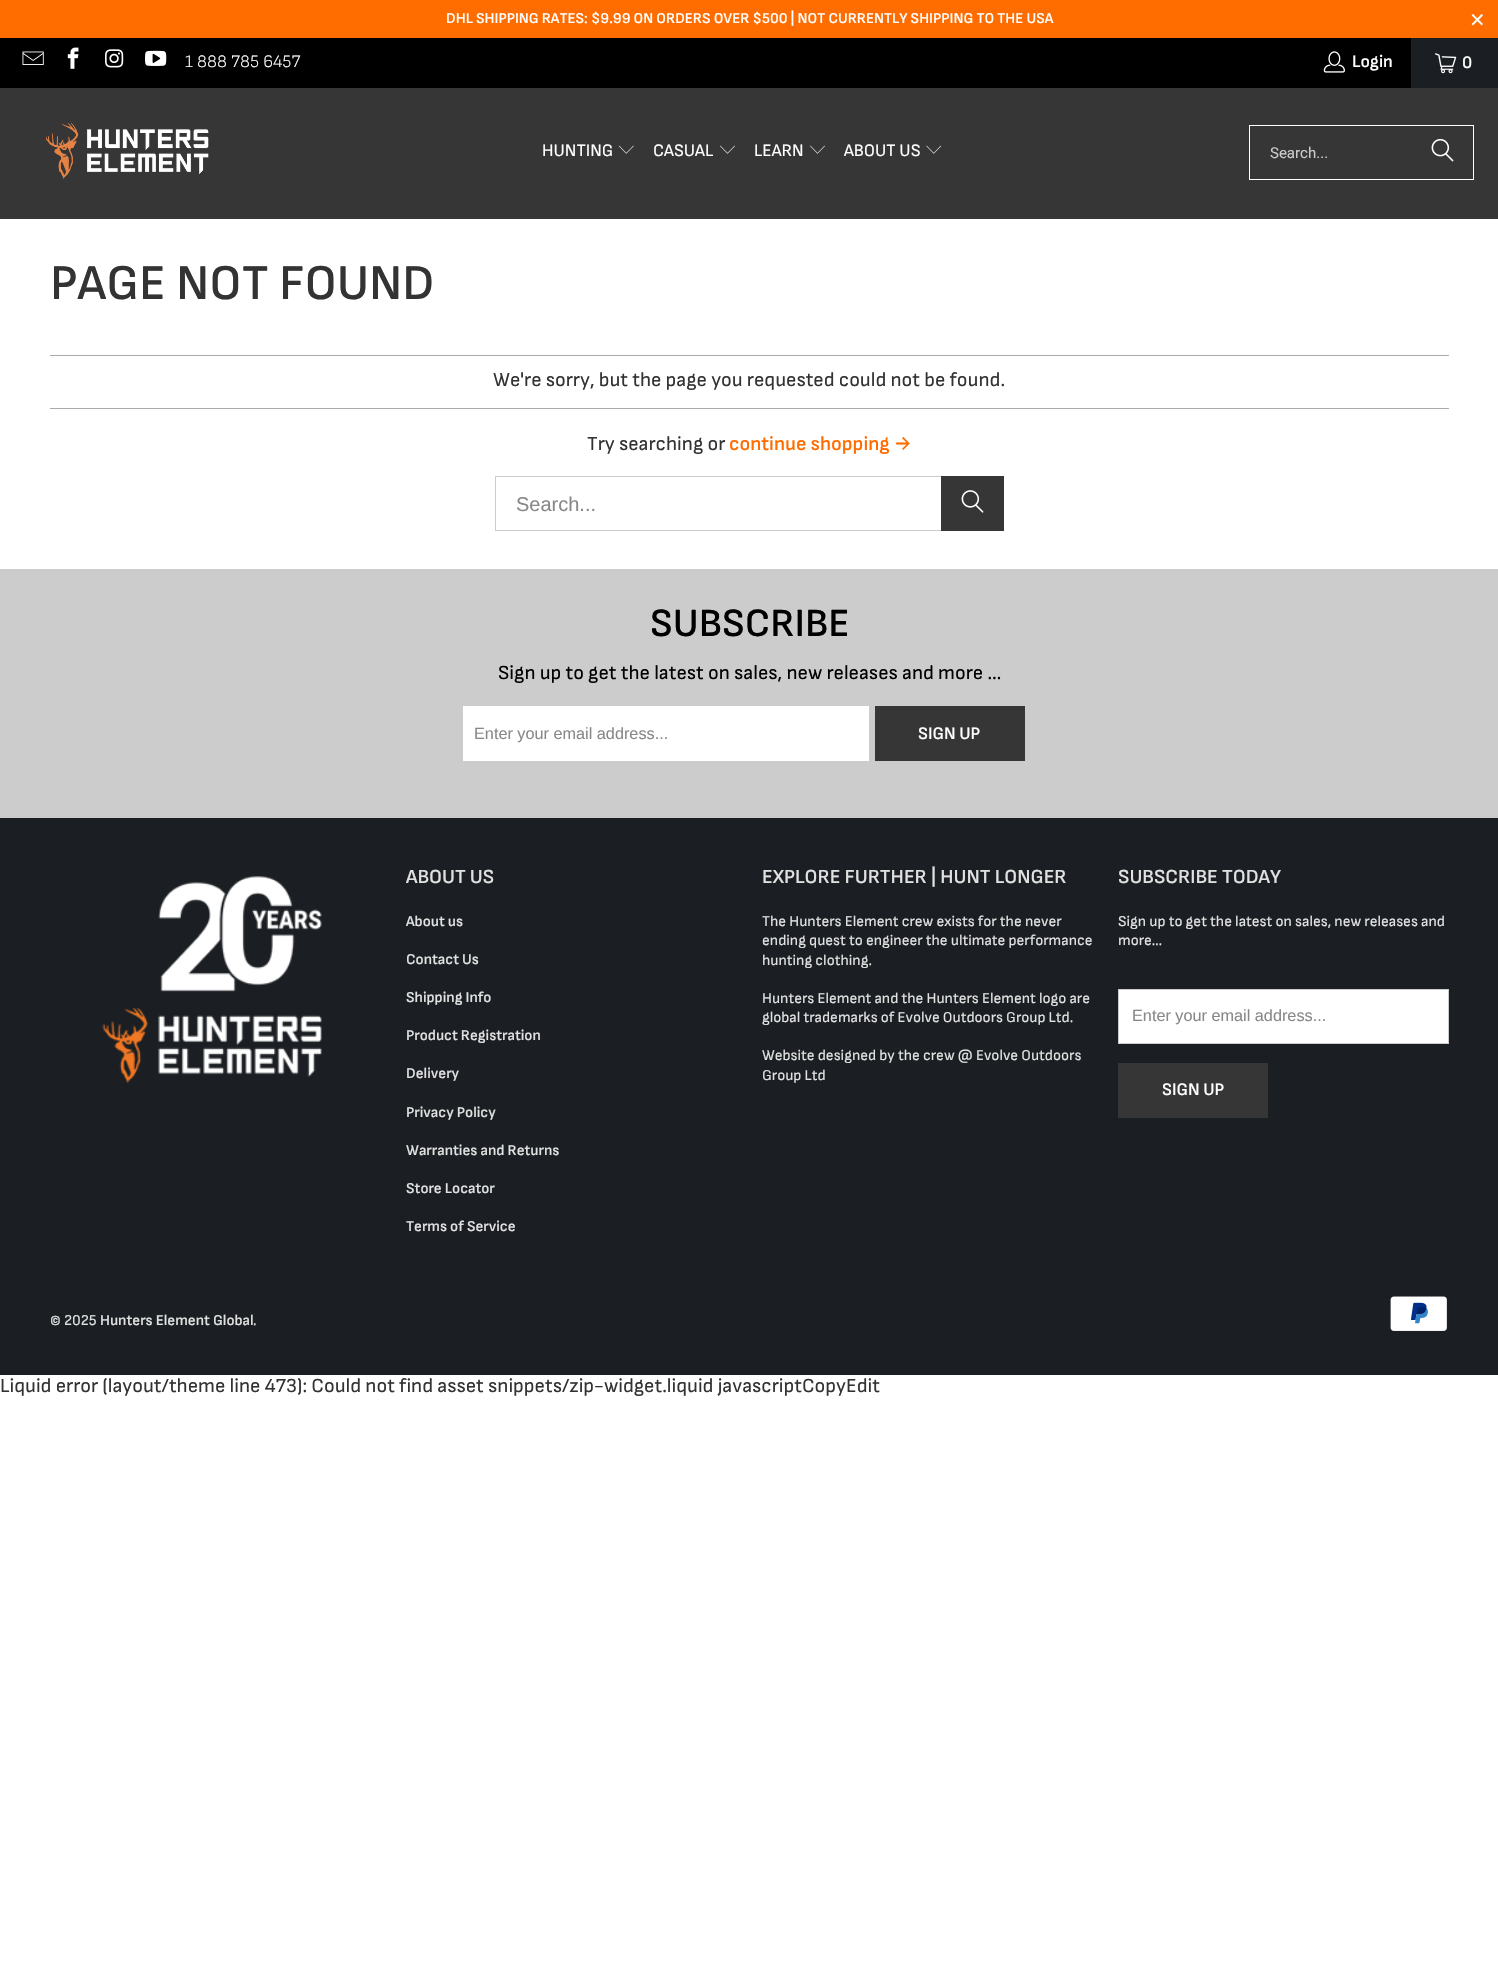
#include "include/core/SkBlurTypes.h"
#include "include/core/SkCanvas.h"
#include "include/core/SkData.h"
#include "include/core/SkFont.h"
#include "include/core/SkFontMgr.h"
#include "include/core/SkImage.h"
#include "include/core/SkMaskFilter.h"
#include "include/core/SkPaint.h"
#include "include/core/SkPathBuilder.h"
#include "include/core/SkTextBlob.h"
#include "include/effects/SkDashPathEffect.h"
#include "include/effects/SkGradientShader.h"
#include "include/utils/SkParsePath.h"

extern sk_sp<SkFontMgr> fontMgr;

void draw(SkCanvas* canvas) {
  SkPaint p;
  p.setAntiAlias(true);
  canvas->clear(SK_ColorWHITE);
  p.setColor(SkColorSetRGB(255, 108, 0));
  canvas->drawRect(SkRect::MakeLTRB(0, 0, 1498, 38), p);
  p.setColor(SK_ColorBLACK);
  canvas->drawRect(SkRect::MakeLTRB(0, 38, 1411, 88), p);
  canvas->drawImageRect(SkImages::DeferredFromEncodedData(SkData::MakeFromFileName("images/1.png")), SkRect::MakeLTRB(22, 51, 44, 65), SkSamplingOptions());
  canvas->drawImageRect(SkImages::DeferredFromEncodedData(SkData::MakeFromFileName("images/2.png")), SkRect::MakeLTRB(67, 47, 79, 69), SkSamplingOptions());
  canvas->drawImageRect(SkImages::DeferredFromEncodedData(SkData::MakeFromFileName("images/3.png")), SkRect::MakeLTRB(105, 49, 124, 68), SkSamplingOptions());
  canvas->drawImageRect(SkImages::DeferredFromEncodedData(SkData::MakeFromFileName("images/4.png")), SkRect::MakeLTRB(145, 50, 167, 66), SkSamplingOptions());
  canvas->drawImageRect(SkImages::DeferredFromEncodedData(SkData::MakeFromFileName("images/5.png")), SkRect::MakeLTRB(1323, 51, 1345, 73), SkSamplingOptions());
  p.setColor(SkColorSetRGB(27, 31, 35));
  canvas->drawRect(SkRect::MakeLTRB(1411, 38, 1498, 88), p);
  canvas->drawImageRect(SkImages::DeferredFromEncodedData(SkData::MakeFromFileName("images/6.png")), SkRect::MakeLTRB(1435, 53, 1457, 74), SkSamplingOptions());
  p.setColor(SkColorSetRGB(54, 54, 54));
  canvas->drawRect(SkRect::MakeLTRB(0, 88, 1498, 219), p);
  canvas->drawImageRect(SkImages::DeferredFromEncodedData(SkData::MakeFromFileName("images/7.png")), SkRect::MakeLTRB(45, 123, 209, 179), SkSamplingOptions());
  canvas->drawImageRect(SkImages::DeferredFromEncodedData(SkData::MakeFromFileName("images/8.png")), SkRect::MakeLTRB(618, 145, 634, 154), SkSamplingOptions());
  canvas->drawImageRect(SkImages::DeferredFromEncodedData(SkData::MakeFromFileName("images/9.png")), SkRect::MakeLTRB(720, 145, 735, 154), SkSamplingOptions());
  canvas->drawImageRect(SkImages::DeferredFromEncodedData(SkData::MakeFromFileName("images/9.png")), SkRect::MakeLTRB(810, 145, 825, 154), SkSamplingOptions());
  canvas->drawImageRect(SkImages::DeferredFromEncodedData(SkData::MakeFromFileName("images/10.png")), SkRect::MakeLTRB(926, 145, 942, 154), SkSamplingOptions());
  p.setStyle(SkPaint::kStroke_Style);
  p.setStrokeWidth(1);
  p.setColor(SK_ColorWHITE);
  canvas->drawRect(SkRect::MakeLTRB(1249.5f, 125.5f, 1473.5f, 179.5f), p);
  canvas->drawImageRect(SkImages::DeferredFromEncodedData(SkData::MakeFromFileName("images/11.png")), SkRect::MakeLTRB(1431, 138, 1454, 162), SkSamplingOptions());
  p.setStyle(SkPaint::kFill_Style);
  p.setColor(SkColorSetRGB(170, 170, 170));
  canvas->drawRect(SkRect::MakeLTRB(50, 355, 1449, 356), p);
  canvas->drawRect(SkRect::MakeLTRB(50, 408, 1449, 409), p);
  p.setStyle(SkPaint::kStroke_Style);
  p.setColor(SkColorSetRGB(204, 204, 204));
  canvas->drawRect(SkRect::MakeLTRB(495.5f, 476.5f, 1003.5f, 530.5f), p);
  p.setStyle(SkPaint::kFill_Style);
  p.setColor(SkColorSetRGB(54, 54, 54));
  canvas->drawRect(SkRect::MakeLTRB(941, 476, 1004, 531), p);
  canvas->drawImageRect(SkImages::DeferredFromEncodedData(SkData::MakeFromFileName("images/12.png")), SkRect::MakeLTRB(961, 490, 984, 513), SkSamplingOptions());
  p.setColor(SkColorSetRGB(204, 204, 204));
  canvas->drawRect(SkRect::MakeLTRB(0, 569, 1498, 818), p);
  p.setColor(SK_ColorWHITE);
  canvas->drawRect(SkRect::MakeLTRB(463, 706, 869, 761), p);
  p.setColor(SkColorSetRGB(54, 54, 54));
  canvas->drawRect(SkRect::MakeLTRB(875, 706, 1025, 761), p);
  p.setColor(SkColorSetRGB(27, 31, 35));
  canvas->drawRect(SkRect::MakeLTRB(0, 818, 1498, 1375), p);
  canvas->drawImageRect(SkImages::DeferredFromEncodedData(SkData::MakeFromFileName("images/13.png")), SkRect::MakeLTRB(102, 876, 322, 1083), SkSamplingOptions());
  p.setColor(SK_ColorWHITE);
  canvas->drawRect(SkRect::MakeLTRB(1118.5f, 989.5f, 1448.5f, 1043.5f), p);
  p.setStyle(SkPaint::kStroke_Style);
  p.setColor(SkColorSetRGB(204, 204, 204));
  canvas->drawRect(SkRect::MakeLTRB(1118.5f, 989.5f, 1448.5f, 1043.5f), p);
  p.setStyle(SkPaint::kFill_Style);
  p.setColor(SkColorSetRGB(54, 54, 54));
  canvas->drawRect(SkRect::MakeLTRB(1118, 1063, 1268, 1118), p);
  canvas->drawImageRect(SkImages::DeferredFromEncodedData(SkData::MakeFromFileName("images/14.png")), SkRect::MakeLTRB(1390, 1296, 1447, 1331), SkSamplingOptions());
  SkFont font1(fontMgr->matchFamilyStyle("Sofia Sans", SkFontStyle(600, SkFontStyle::kNormal_Width, SkFontStyle::kUpright_Slant)), 15);
  font1.setSubpixel(true);
  p.setColor(SK_ColorWHITE);
  canvas->drawString("DHL SHIPPING RATES: $9.99 ON ORDERS OVER $500 | NOT CURRENTLY SHIPPING TO THE USA", 446, 23, font1, p);
  SkFont font2(fontMgr->matchFamilyStyle("Liberation Sans", SkFontStyle::Normal()), 25);
  font2.setSubpixel(true);
  canvas->drawString("×", 1470, 28, font2, p);
  SkFont font3(fontMgr->matchFamilyStyle("Sofia Sans", SkFontStyle(300, SkFontStyle::kNormal_Width, SkFontStyle::kUpright_Slant)), 17.5f);
  font3.setSubpixel(true);
  canvas->drawString("1 888 785 6457", 185, 67, font3, p);
  SkFont font4(fontMgr->matchFamilyStyle("Sofia Sans", SkFontStyle(600, SkFontStyle::kNormal_Width, SkFontStyle::kUpright_Slant)), 17.5f);
  font4.setSubpixel(true);
  canvas->drawString("Login", 1352, 67, font4, p);
  canvas->drawString("0", 1462, 68, font4, p);
  SkFont font5(fontMgr->matchFamilyStyle("Sofia Sans", SkFontStyle::Normal()), 17.5f);
  font5.setSubpixel(true);
  canvas->drawString("HUNTING", 542, 156, font5, p);
  canvas->drawString("CASUAL", 653, 156, font5, p);
  canvas->drawString("LEARN", 754, 156, font5, p);
  canvas->drawString("ABOUT US", 844, 156, font5, p);
  SkFont font6(fontMgr->matchFamilyStyle("Roboto", SkFontStyle::Normal()), 15);
  font6.setSubpixel(true);
  p.setColor(SkColorSetRGB(204, 204, 204));
  canvas->drawString("Search...", 1270, 158, font6, p);
  SkFont font7(fontMgr->matchFamilyStyle("Sofia Sans", SkFontStyle(600, SkFontStyle::kNormal_Width, SkFontStyle::kUpright_Slant)), 50);
  font7.setSubpixel(true);
  p.setColor(SkColorSetRGB(51, 51, 51));
  canvas->drawString("PAGE NOT FOUND", 50, 299, font7, p);
  SkFont font8(fontMgr->matchFamilyStyle("Sofia Sans", SkFontStyle::Normal()), 20);
  font8.setSubpixel(true);
  canvas->drawString("We're sorry, but the page you requested could not be found.", 493, 386, font8, p);
  canvas->drawString("Try searching or", 587, 450, font8, p);
  SkFont font9(fontMgr->matchFamilyStyle("Sofia Sans", SkFontStyle(600, SkFontStyle::kNormal_Width, SkFontStyle::kUpright_Slant)), 20);
  font9.setSubpixel(true);
  p.setColor(SkColorSetRGB(255, 108, 0));
  canvas->drawString("continue shopping →", 729, 450, font9, p);
  SkFont font10(fontMgr->matchFamilyStyle("Liberation Sans", SkFontStyle::Normal()), 20);
  font10.setSubpixel(true);
  p.setColor(SkColorSetRGB(136, 136, 136));
  canvas->drawString("Search...", 516, 511, font10, p);
  SkFont font11(fontMgr->matchFamilyStyle("Sofia Sans", SkFontStyle(600, SkFontStyle::kNormal_Width, SkFontStyle::kUpright_Slant)), 40);
  font11.setSubpixel(true);
  p.setColor(SK_ColorBLACK);
  canvas->drawString("SUBSCRIBE", 650, 636, font11, p);
  canvas->drawString("Sign up to get the latest on sales, new releases and more …", 498, 679, font8, p);
  SkFont font12(fontMgr->matchFamilyStyle("Liberation Sans", SkFontStyle::Normal()), 16.25f);
  font12.setSubpixel(true);
  p.setColor(SkColorSetRGB(136, 136, 136));
  canvas->drawString("Enter your email address...", 474, 739, font12, p);
  p.setColor(SK_ColorWHITE);
  canvas->drawString("SIGN UP", 918, 739, font4, p);
  p.setColor(SkColorSetRGB(225, 225, 225));
  canvas->drawString("ABOUT US", 406, 883, font9, p);
  canvas->drawString("About us", 406, 926, font1, p);
  canvas->drawString("Contact Us", 406, 964, font1, p);
  canvas->drawString("Shipping Info", 406, 1002, font1, p);
  canvas->drawString("Product Registration", 406, 1040, font1, p);
  canvas->drawString("Delivery", 406, 1078, font1, p);
  canvas->drawString("Privacy Policy", 406, 1117, font1, p);
  canvas->drawString("Warranties and Returns", 406, 1155, font1, p);
  canvas->drawString("Store Locator", 406, 1193, font1, p);
  canvas->drawString("Terms of Service", 406, 1231, font1, p);
  canvas->drawString("EXPLORE FURTHER | HUNT LONGER", 762, 883, font9, p);
  SkFont font13(fontMgr->matchFamilyStyle("Sofia Sans", SkFontStyle::Normal()), 15);
  font13.setSubpixel(true);
  canvas->drawString("The Hunters Element crew exists for the never", 762, 926, font13, p);
  canvas->drawString("ending quest to engineer the ultimate performance", 762, 945, font13, p);
  canvas->drawString("hunting clothing.", 762, 965, font13, p);
  canvas->drawString("Hunters Element and the Hunters Element logo are", 762, 1003, font13, p);
  canvas->drawString("global trademarks of Evolve Outdoors Group Ltd.", 762, 1022, font13, p);
  canvas->drawString("Website designed by the crew @ Evolve Outdoors", 762, 1060, font13, p);
  canvas->drawString("Group Ltd", 762, 1080, font13, p);
  canvas->drawString("SUBSCRIBE TODAY", 1118, 883, font9, p);
  canvas->drawString("Sign up to get the latest on sales, new releases and", 1118, 926, font13, p);
  canvas->drawString("more…", 1118, 945, font13, p);
  p.setColor(SkColorSetRGB(136, 136, 136));
  canvas->drawString("Enter your email address...", 1132, 1021, font12, p);
  p.setColor(SK_ColorWHITE);
  canvas->drawString("SIGN UP", 1162, 1095, font4, p);
  p.setColor(SkColorSetRGB(225, 225, 225));
  canvas->drawString("© 2025", 50, 1325, font13, p);
  canvas->drawString("Hunters Element Global", 100, 1325, font1, p);
  canvas->drawString(".", 253, 1325, font13, p);
  p.setColor(SkColorSetRGB(51, 51, 51));
  canvas->drawString("Liquid error (layout/theme line 473): Could not find asset snippets/zip-widget.liquid javascriptCopyEdit", 0, 1392, font8, p);
}
